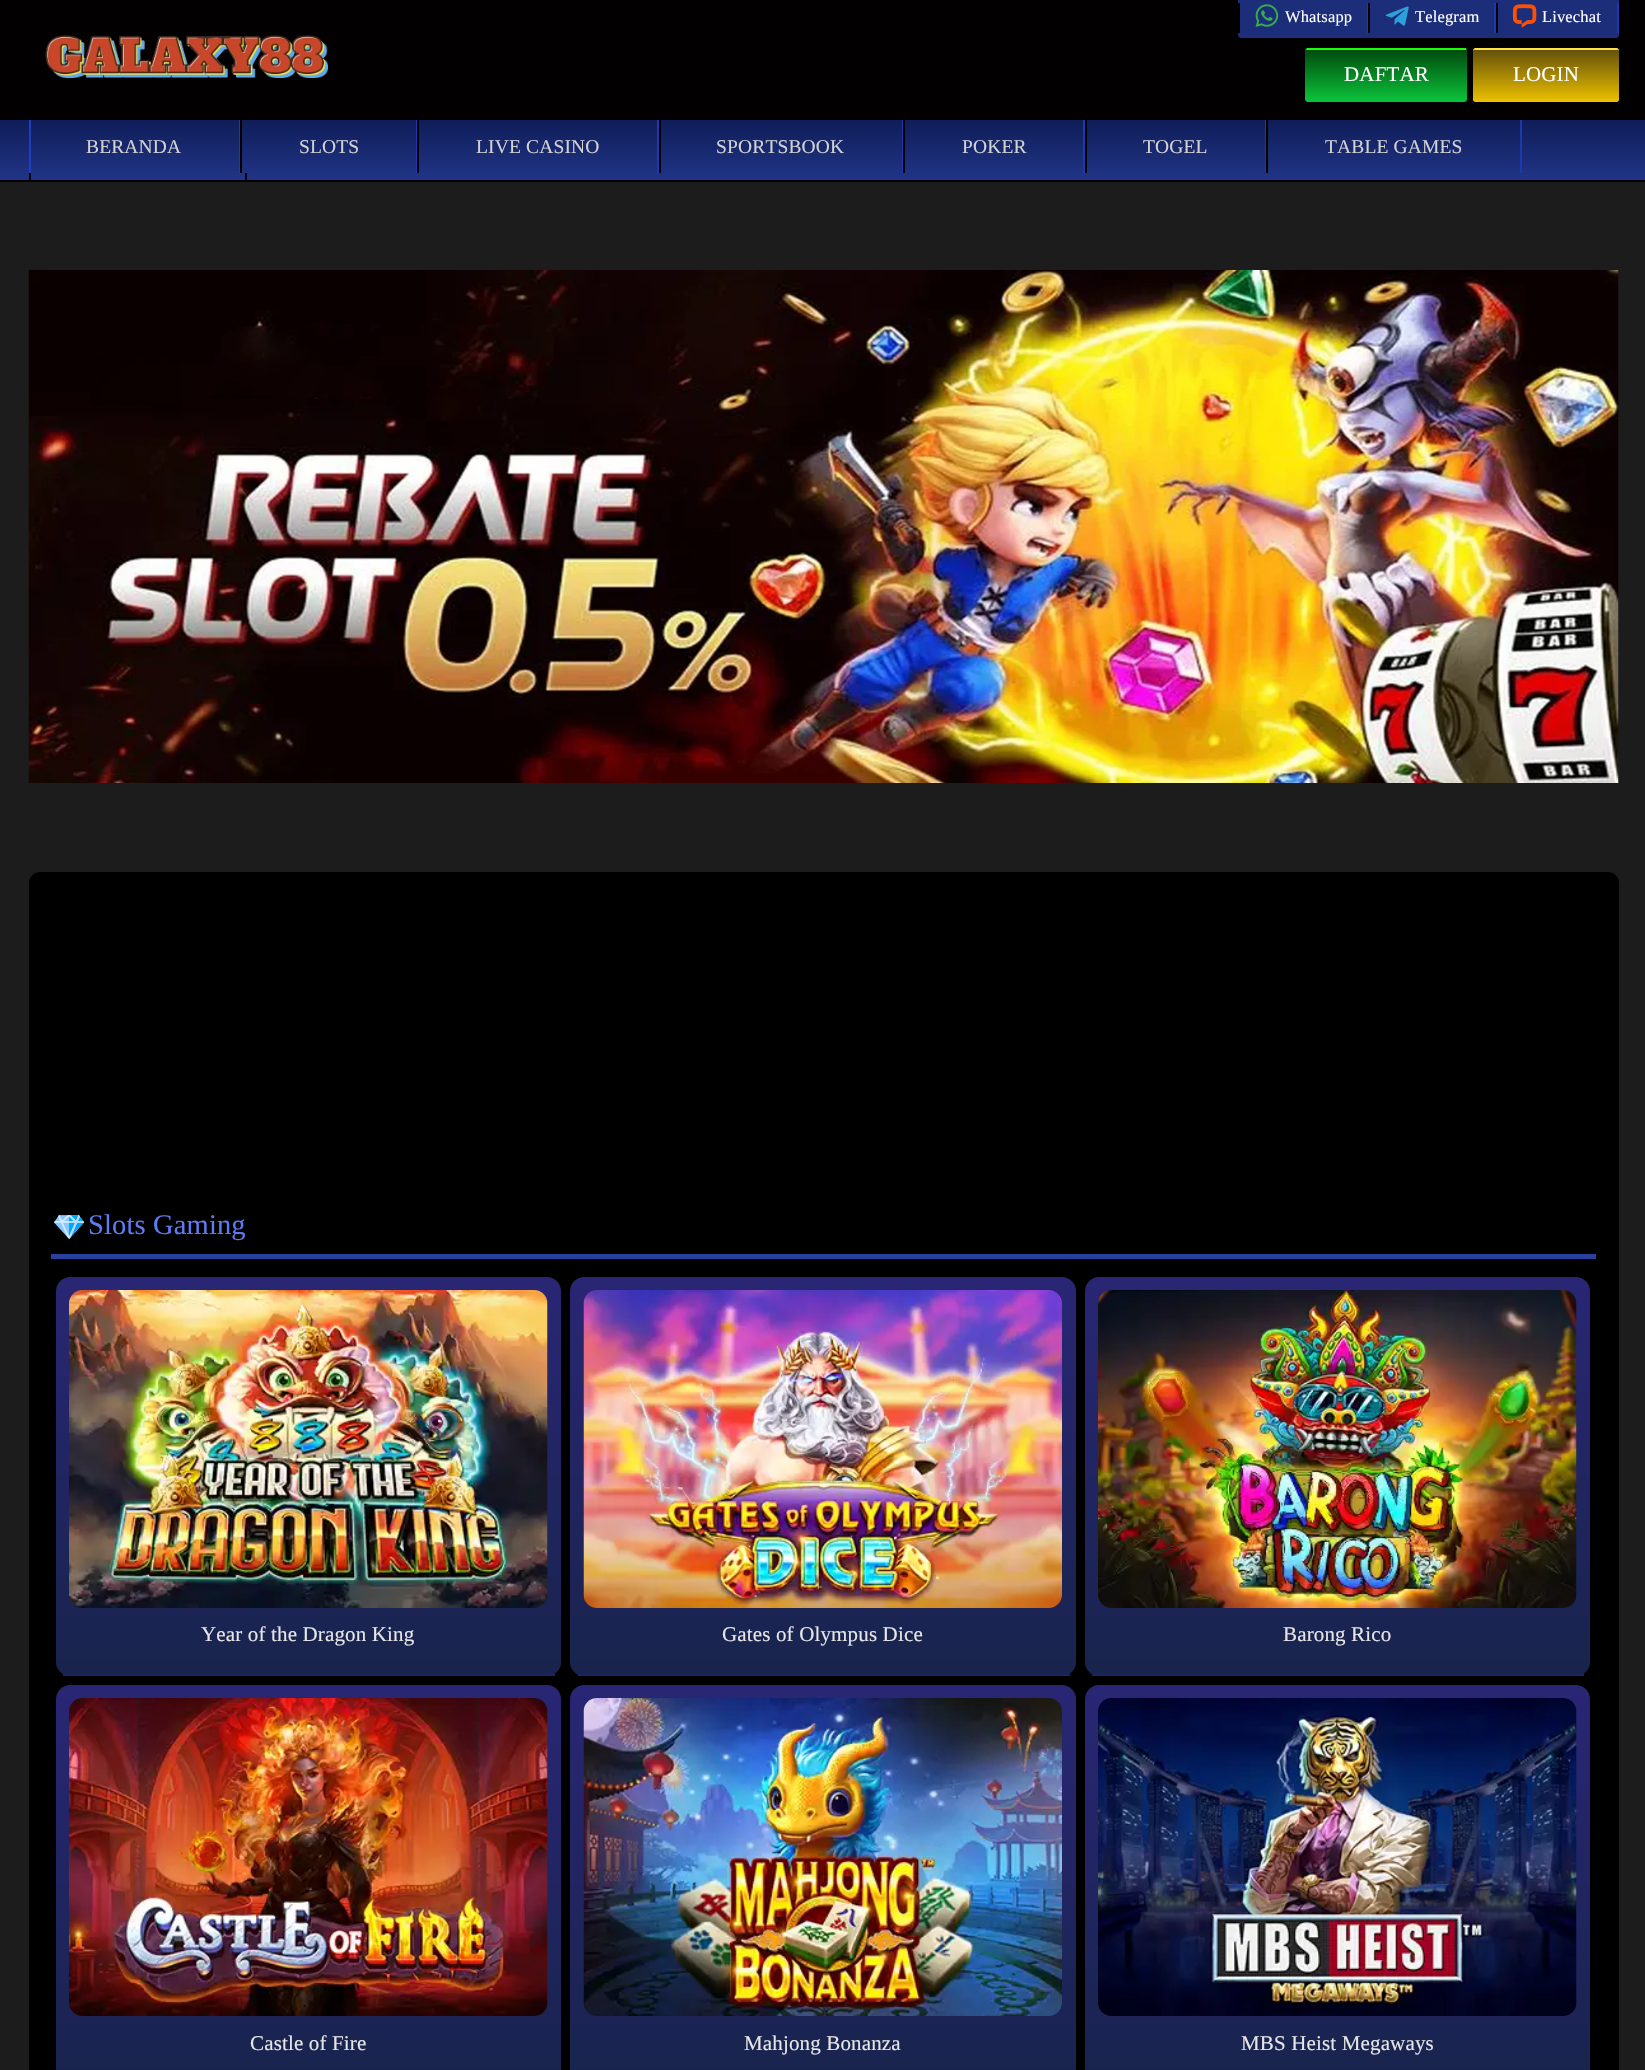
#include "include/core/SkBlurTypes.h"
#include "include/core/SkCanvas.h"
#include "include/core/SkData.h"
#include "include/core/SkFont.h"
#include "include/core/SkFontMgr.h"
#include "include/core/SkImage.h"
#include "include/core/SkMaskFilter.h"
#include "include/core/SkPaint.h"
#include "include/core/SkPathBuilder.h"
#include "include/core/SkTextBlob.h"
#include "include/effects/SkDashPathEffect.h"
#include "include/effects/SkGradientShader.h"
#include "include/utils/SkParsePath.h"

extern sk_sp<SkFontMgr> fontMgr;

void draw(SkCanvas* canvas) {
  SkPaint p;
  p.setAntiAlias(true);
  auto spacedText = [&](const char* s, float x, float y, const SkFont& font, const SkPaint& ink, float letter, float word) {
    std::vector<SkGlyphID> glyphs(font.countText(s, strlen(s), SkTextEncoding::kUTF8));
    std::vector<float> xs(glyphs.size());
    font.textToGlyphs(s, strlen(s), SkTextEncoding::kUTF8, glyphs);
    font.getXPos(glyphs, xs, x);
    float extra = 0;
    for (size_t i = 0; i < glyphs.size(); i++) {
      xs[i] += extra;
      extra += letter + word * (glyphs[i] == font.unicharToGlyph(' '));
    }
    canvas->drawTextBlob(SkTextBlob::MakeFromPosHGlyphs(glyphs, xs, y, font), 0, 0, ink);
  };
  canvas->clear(SkColorSetRGB(2, 0, 0));
  canvas->drawImageRect(SkImages::DeferredFromEncodedData(SkData::MakeFromFileName("images/1.png")), SkRect::MakeLTRB(45, 35, 329, 79), SkSamplingOptions());
  p.setColor(SkColorSetRGB(28, 46, 121));
  canvas->drawPath(SkPathBuilder().moveTo(1238, 0).lineTo(1619, 0).lineTo(1619, 35).cubicTo(1619, 36.5f, 1617.5f, 38, 1616, 38).lineTo(1241, 38).cubicTo(1239.5f, 38, 1238, 36.5f, 1238, 35).close().detach(), p);
  p.setColor(SkColorSetRGB(28, 56, 178));
  canvas->drawRect(SkRect::MakeLTRB(1367, 3, 1368, 33), p);
  p.setColor(SK_ColorBLACK);
  canvas->drawRect(SkRect::MakeLTRB(1238, 3, 1240, 33), p);
  canvas->drawImageRect(SkImages::DeferredFromEncodedData(SkData::MakeFromFileName("images/2.png")), SkRect::MakeLTRB(1255, 4, 1279, 27), SkSamplingOptions());
  p.setColor(SkColorSetRGB(28, 56, 178));
  canvas->drawRect(SkRect::MakeLTRB(1494, 3, 1496, 33), p);
  p.setColor(SK_ColorBLACK);
  canvas->drawRect(SkRect::MakeLTRB(1368, 3, 1370, 33), p);
  canvas->drawImageRect(SkImages::DeferredFromEncodedData(SkData::MakeFromFileName("images/3.png")), SkRect::MakeLTRB(1385, 6, 1409, 26), SkSamplingOptions());
  p.setColor(SkColorSetRGB(28, 56, 178));
  canvas->drawRect(SkRect::MakeLTRB(1617, 3, 1619, 33), p);
  p.setColor(SK_ColorBLACK);
  canvas->drawRect(SkRect::MakeLTRB(1496, 3, 1498, 33), p);
  canvas->drawImageRect(SkImages::DeferredFromEncodedData(SkData::MakeFromFileName("images/4.png")), SkRect::MakeLTRB(1512, 4, 1537, 28), SkSamplingOptions());
  p.setColor(SkColorSetRGB(0, 130, 21));
  canvas->drawRoundRect(SkRect::MakeLTRB(1305, 48, 1467, 102), 3, 3, p);
  canvas->save();
  canvas->clipPath(SkPathBuilder().moveTo(1308, 48).lineTo(1464, 48).cubicTo(1465.5f, 48, 1467, 49.5f, 1467, 51).lineTo(1467, 99).cubicTo(1467, 100.5f, 1465.5f, 102, 1464, 102).lineTo(1308, 102).cubicTo(1306.5f, 102, 1305, 100.5f, 1305, 99).lineTo(1305, 51).cubicTo(1305, 49.5f, 1306.5f, 48, 1308, 48).close().detach(), true);
  {
    const SkColor colors[] = {SkColorSetRGB(0, 73, 12), SkColorSetRGB(11, 196, 59)};
    const float stops[] = {0, 1};
    const SkPoint ends[] = {{1386, -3}, {1386, 50}};
    p.setShader(SkGradientShader::MakeLinear(ends, colors, stops, 2, SkTileMode::kClamp));
    p.setAlpha(255);
  }
  canvas->drawRect(SkRect::MakeLTRB(1305, 48, 1467, 50), p);
  {
    const SkColor colors[] = {SkColorSetRGB(0, 73, 12), SkColorSetRGB(11, 196, 59)};
    const float stops[] = {0, 1};
    const SkPoint ends[] = {{1386, 49}, {1386, 102}};
    p.setShader(SkGradientShader::MakeLinear(ends, colors, stops, 2, SkTileMode::kClamp));
    p.setAlpha(255);
  }
  canvas->drawPath(SkPathBuilder().moveTo(1305, 50).lineTo(1467, 50).lineTo(1467, 99).cubicTo(1467, 100.5f, 1465.5f, 102, 1464, 102).lineTo(1308, 102).cubicTo(1306.5f, 102, 1305, 100.5f, 1305, 99).close().detach(), p);
  canvas->restore();
  p.setShader(nullptr);
  p.setColor(SkColorSetRGB(24, 255, 9));
  canvas->drawRect(SkRect::MakeLTRB(1307, 48, 1466, 50), p);
  p.setColor(SkColorSetRGB(246, 213, 61));
  canvas->drawRoundRect(SkRect::MakeLTRB(1473, 48, 1619, 102), 3, 3, p);
  canvas->save();
  canvas->clipPath(SkPathBuilder().moveTo(1476, 48).lineTo(1616, 48).cubicTo(1617.5f, 48, 1619, 49.5f, 1619, 51).lineTo(1619, 99).cubicTo(1619, 100.5f, 1617.5f, 102, 1616, 102).lineTo(1476, 102).cubicTo(1474.5f, 102, 1473, 100.5f, 1473, 99).lineTo(1473, 51).cubicTo(1473, 49.5f, 1474.5f, 48, 1476, 48).close().detach(), true);
  {
    const SkColor colors[] = {SkColorSetRGB(98, 79, 9), SkColorSetRGB(236, 193, 0)};
    const float stops[] = {0, 1};
    const SkPoint ends[] = {{1546, -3}, {1546, 50}};
    p.setShader(SkGradientShader::MakeLinear(ends, colors, stops, 2, SkTileMode::kClamp));
    p.setAlpha(255);
  }
  canvas->drawRect(SkRect::MakeLTRB(1473, 48, 1619, 50), p);
  {
    const SkColor colors[] = {SkColorSetRGB(98, 79, 9), SkColorSetRGB(236, 193, 0)};
    const float stops[] = {0, 1};
    const SkPoint ends[] = {{1546, 49}, {1546, 102}};
    p.setShader(SkGradientShader::MakeLinear(ends, colors, stops, 2, SkTileMode::kClamp));
    p.setAlpha(255);
  }
  canvas->drawPath(SkPathBuilder().moveTo(1473, 50).lineTo(1619, 50).lineTo(1619, 99).cubicTo(1619, 100.5f, 1617.5f, 102, 1616, 102).lineTo(1476, 102).cubicTo(1474.5f, 102, 1473, 100.5f, 1473, 99).close().detach(), p);
  canvas->restore();
  p.setShader(nullptr);
  p.setColor(SkColorSetRGB(253, 226, 70));
  canvas->drawRect(SkRect::MakeLTRB(1475, 48, 1617, 50), p);
  {
    const SkColor colors[] = {SkColorSetRGB(15, 29, 88), SkColorSetRGB(42, 64, 158)};
    const float stops[] = {0, 0.85f};
    const SkPoint ends[] = {{823, 120}, {823, 225}};
    p.setShader(SkGradientShader::MakeLinear(ends, colors, stops, 2, SkTileMode::kClamp));
    p.setAlpha(255);
  }
  canvas->drawRect(SkRect::MakeLTRB(0, 120, 1645, 180), p);
  p.setShader(nullptr);
  p.setColor(SkColorSetRGB(28, 56, 178));
  canvas->drawRect(SkRect::MakeLTRB(239, 120, 240, 173), p);
  p.setColor(SkColorSetRGB(31, 61, 192));
  canvas->drawRect(SkRect::MakeLTRB(29, 120, 31, 173), p);
  p.setColor(SkColorSetRGB(28, 56, 178));
  canvas->drawRect(SkRect::MakeLTRB(416, 120, 417, 173), p);
  p.setColor(SK_ColorBLACK);
  canvas->drawRect(SkRect::MakeLTRB(240, 120, 242, 173), p);
  p.setColor(SkColorSetRGB(28, 56, 178));
  canvas->drawRect(SkRect::MakeLTRB(657, 120, 659, 173), p);
  p.setColor(SK_ColorBLACK);
  canvas->drawRect(SkRect::MakeLTRB(417, 120, 419, 173), p);
  p.setColor(SkColorSetRGB(28, 56, 178));
  canvas->drawRect(SkRect::MakeLTRB(902, 120, 903, 173), p);
  p.setColor(SK_ColorBLACK);
  canvas->drawRect(SkRect::MakeLTRB(659, 120, 661, 173), p);
  p.setColor(SkColorSetRGB(28, 56, 178));
  canvas->drawRect(SkRect::MakeLTRB(1083, 120, 1085, 173), p);
  p.setColor(SK_ColorBLACK);
  canvas->drawRect(SkRect::MakeLTRB(903, 120, 905, 173), p);
  p.setColor(SkColorSetRGB(28, 56, 178));
  canvas->drawRect(SkRect::MakeLTRB(1265, 120, 1266, 173), p);
  p.setColor(SK_ColorBLACK);
  canvas->drawRect(SkRect::MakeLTRB(1085, 120, 1087, 173), p);
  p.setColor(SkColorSetRGB(28, 56, 178));
  canvas->drawRect(SkRect::MakeLTRB(1520, 120, 1522, 173), p);
  p.setColor(SK_ColorBLACK);
  canvas->drawRect(SkRect::MakeLTRB(1266, 120, 1268, 173), p);
  p.setColor(SkColorSetRGB(0, 3, 5));
  canvas->drawRect(SkRect::MakeLTRB(245, 173, 247, 180), p);
  p.setColor(SK_ColorBLACK);
  canvas->drawRect(SkRect::MakeLTRB(29, 173, 31, 180), p);
  p.setColor(SkColorSetRGB(28, 28, 28));
  canvas->drawRect(SkRect::MakeLTRB(0, 182, 1645, 2070), p);
  canvas->drawImageRect(SkImages::DeferredFromEncodedData(SkData::MakeFromFileName("images/5.png")), SkRect::MakeLTRB(28, 270, 1619, 783), SkSamplingOptions());
  p.setColor(SK_ColorBLACK);
  canvas->drawRoundRect(SkRect::MakeLTRB(29, 872, 1619, 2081), 11, 11, p);
  p.setColor(SkColorSetRGB(42, 64, 158));
  canvas->drawRect(SkRect::MakeLTRB(51, 1254, 1596, 1259), p);
  canvas->drawImageRect(SkImages::DeferredFromEncodedData(SkData::MakeFromFileName("images/6.png")), SkRect::MakeLTRB(54, 1215, 84, 1239), SkSamplingOptions());
  p.setColor(SkColorSetRGB(25, 25, 25));
  canvas->drawRoundRect(SkRect::MakeLTRB(56, 1277, 561, 1676), 14, 14, p);
  canvas->save();
  canvas->clipPath(SkPathBuilder().moveTo(70, 1277).lineTo(547, 1277).cubicTo(554.5f, 1277, 561, 1283.5f, 561, 1291).lineTo(561, 1662).cubicTo(561, 1669.5f, 554.5f, 1676, 547, 1676).lineTo(70, 1676).cubicTo(62.5f, 1676, 56, 1669.5f, 56, 1662).lineTo(56, 1291).cubicTo(56, 1283.5f, 62.5f, 1277, 70, 1277).close().detach(), true);
  {
    const SkColor colors[] = {SkColorSetRGB(41, 38, 117), SkColorSetRGB(24, 36, 77)};
    const float stops[] = {0, 1};
    const SkPoint ends[] = {{308, 1277}, {308, 1674}};
    p.setShader(SkGradientShader::MakeLinear(ends, colors, stops, 2, SkTileMode::kClamp));
    p.setAlpha(255);
  }
  canvas->drawPath(SkPathBuilder().moveTo(70, 1277).lineTo(547, 1277).cubicTo(554.5f, 1277, 561, 1283.5f, 561, 1291).lineTo(561, 1674).lineTo(56, 1674).lineTo(56, 1291).cubicTo(56, 1283.5f, 62.5f, 1277, 70, 1277).close().detach(), p);
  canvas->restore();
  p.setShader(nullptr);
  p.setColor(SkColorSetRGB(25, 38, 95));
  canvas->drawRect(SkRect::MakeLTRB(63, 1674, 555, 1676), p);
  canvas->drawImageRect(SkImages::DeferredFromEncodedData(SkData::MakeFromFileName("images/7.png")), SkRect::MakeLTRB(69, 1290, 548, 1608), SkSamplingOptions());
  p.setColor(SkColorSetRGB(25, 25, 25));
  canvas->drawRoundRect(SkRect::MakeLTRB(570, 1277, 1076, 1676), 14, 14, p);
  canvas->save();
  canvas->clipPath(SkPathBuilder().moveTo(584, 1277).lineTo(1062, 1277).cubicTo(1069.5f, 1277, 1076, 1283.5f, 1076, 1291).lineTo(1076, 1662).cubicTo(1076, 1669.5f, 1069.5f, 1676, 1062, 1676).lineTo(584, 1676).cubicTo(576.5f, 1676, 570, 1669.5f, 570, 1662).lineTo(570, 1291).cubicTo(570, 1283.5f, 576.5f, 1277, 584, 1277).close().detach(), true);
  {
    const SkColor colors[] = {SkColorSetRGB(41, 38, 117), SkColorSetRGB(24, 36, 77)};
    const float stops[] = {0, 1};
    const SkPoint ends[] = {{823, 1277}, {823, 1674}};
    p.setShader(SkGradientShader::MakeLinear(ends, colors, stops, 2, SkTileMode::kClamp));
    p.setAlpha(255);
  }
  canvas->drawPath(SkPathBuilder().moveTo(584, 1277).lineTo(1062, 1277).cubicTo(1069.5f, 1277, 1076, 1283.5f, 1076, 1291).lineTo(1076, 1674).lineTo(570, 1674).lineTo(570, 1291).cubicTo(570, 1283.5f, 576.5f, 1277, 584, 1277).close().detach(), p);
  {
    const SkColor colors[] = {SkColorSetRGB(41, 38, 117), SkColorSetRGB(24, 36, 77)};
    const float stops[] = {0, 1};
    const SkPoint ends[] = {{823, 1674}, {823, 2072}};
    p.setShader(SkGradientShader::MakeLinear(ends, colors, stops, 2, SkTileMode::kClamp));
    p.setAlpha(255);
  }
  canvas->drawRect(SkRect::MakeLTRB(570, 1674, 578, 1675), p);
  canvas->restore();
  p.setShader(nullptr);
  p.setColor(SkColorSetRGB(25, 38, 95));
  canvas->drawRect(SkRect::MakeLTRB(578, 1674, 1070, 1676), p);
  canvas->drawImageRect(SkImages::DeferredFromEncodedData(SkData::MakeFromFileName("images/8.png")), SkRect::MakeLTRB(583, 1290, 1062, 1608), SkSamplingOptions());
  p.setColor(SkColorSetRGB(25, 25, 25));
  canvas->drawRoundRect(SkRect::MakeLTRB(1085, 1277, 1590, 1676), 14, 14, p);
  canvas->save();
  canvas->clipPath(SkPathBuilder().moveTo(1099, 1277).lineTo(1576, 1277).cubicTo(1583.5f, 1277, 1590, 1283.5f, 1590, 1291).lineTo(1590, 1662).cubicTo(1590, 1669.5f, 1583.5f, 1676, 1576, 1676).lineTo(1099, 1676).cubicTo(1091.5f, 1676, 1085, 1669.5f, 1085, 1662).lineTo(1085, 1291).cubicTo(1085, 1283.5f, 1091.5f, 1277, 1099, 1277).close().detach(), true);
  {
    const SkColor colors[] = {SkColorSetRGB(41, 38, 117), SkColorSetRGB(24, 36, 77)};
    const float stops[] = {0, 1};
    const SkPoint ends[] = {{1337, 1277}, {1337, 1674}};
    p.setShader(SkGradientShader::MakeLinear(ends, colors, stops, 2, SkTileMode::kClamp));
    p.setAlpha(255);
  }
  canvas->drawPath(SkPathBuilder().moveTo(1099, 1277).lineTo(1576, 1277).cubicTo(1583.5f, 1277, 1590, 1283.5f, 1590, 1291).lineTo(1590, 1674).lineTo(1085, 1674).lineTo(1085, 1291).cubicTo(1085, 1283.5f, 1091.5f, 1277, 1099, 1277).close().detach(), p);
  canvas->restore();
  p.setShader(nullptr);
  p.setColor(SkColorSetRGB(25, 38, 95));
  canvas->drawRect(SkRect::MakeLTRB(1092, 1674, 1584, 1676), p);
  canvas->drawImageRect(SkImages::DeferredFromEncodedData(SkData::MakeFromFileName("images/9.png")), SkRect::MakeLTRB(1098, 1290, 1577, 1608), SkSamplingOptions());
  p.setColor(SkColorSetRGB(25, 25, 25));
  canvas->drawRoundRect(SkRect::MakeLTRB(56, 1685, 561, 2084), 14, 14, p);
  canvas->save();
  canvas->clipPath(SkPathBuilder().moveTo(70, 1685).lineTo(547, 1685).cubicTo(554.5f, 1685, 561, 1691.5f, 561, 1699).lineTo(561, 2070).cubicTo(561, 2077.5f, 554.5f, 2084, 547, 2084).lineTo(70, 2084).cubicTo(62.5f, 2084, 56, 2077.5f, 56, 2070).lineTo(56, 1699).cubicTo(56, 1691.5f, 62.5f, 1685, 70, 1685).close().detach(), true);
  {
    const SkColor colors[] = {SkColorSetRGB(41, 38, 117), SkColorSetRGB(24, 36, 77)};
    const float stops[] = {0, 1};
    const SkPoint ends[] = {{308, 1685}, {308, 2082}};
    p.setShader(SkGradientShader::MakeLinear(ends, colors, stops, 2, SkTileMode::kClamp));
    p.setAlpha(255);
  }
  canvas->drawPath(SkPathBuilder().moveTo(70, 1685).lineTo(547, 1685).cubicTo(554.5f, 1685, 561, 1691.5f, 561, 1699).lineTo(561, 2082).lineTo(56, 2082).lineTo(56, 1699).cubicTo(56, 1691.5f, 62.5f, 1685, 70, 1685).close().detach(), p);
  canvas->restore();
  canvas->drawImageRect(SkImages::DeferredFromEncodedData(SkData::MakeFromFileName("images/10.png")), SkRect::MakeLTRB(69, 1698, 548, 2016), SkSamplingOptions());
  p.setShader(nullptr);
  p.setColor(SkColorSetRGB(25, 25, 25));
  canvas->drawRoundRect(SkRect::MakeLTRB(570, 1685, 1076, 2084), 14, 14, p);
  canvas->save();
  canvas->clipPath(SkPathBuilder().moveTo(584, 1685).lineTo(1062, 1685).cubicTo(1069.5f, 1685, 1076, 1691.5f, 1076, 1699).lineTo(1076, 2070).cubicTo(1076, 2077.5f, 1069.5f, 2084, 1062, 2084).lineTo(584, 2084).cubicTo(576.5f, 2084, 570, 2077.5f, 570, 2070).lineTo(570, 1699).cubicTo(570, 1691.5f, 576.5f, 1685, 584, 1685).close().detach(), true);
  {
    const SkColor colors[] = {SkColorSetRGB(41, 38, 117), SkColorSetRGB(24, 36, 77)};
    const float stops[] = {0, 1};
    const SkPoint ends[] = {{823, 1685}, {823, 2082}};
    p.setShader(SkGradientShader::MakeLinear(ends, colors, stops, 2, SkTileMode::kClamp));
    p.setAlpha(255);
  }
  canvas->drawPath(SkPathBuilder().moveTo(584, 1685).lineTo(1062, 1685).cubicTo(1069.5f, 1685, 1076, 1691.5f, 1076, 1699).lineTo(1076, 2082).lineTo(570, 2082).lineTo(570, 1699).cubicTo(570, 1691.5f, 576.5f, 1685, 584, 1685).close().detach(), p);
  canvas->restore();
  canvas->drawImageRect(SkImages::DeferredFromEncodedData(SkData::MakeFromFileName("images/11.png")), SkRect::MakeLTRB(583, 1698, 1062, 2016), SkSamplingOptions());
  p.setShader(nullptr);
  p.setColor(SkColorSetRGB(25, 25, 25));
  canvas->drawRoundRect(SkRect::MakeLTRB(1085, 1685, 1590, 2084), 14, 14, p);
  canvas->save();
  canvas->clipPath(SkPathBuilder().moveTo(1099, 1685).lineTo(1576, 1685).cubicTo(1583.5f, 1685, 1590, 1691.5f, 1590, 1699).lineTo(1590, 2070).cubicTo(1590, 2077.5f, 1583.5f, 2084, 1576, 2084).lineTo(1099, 2084).cubicTo(1091.5f, 2084, 1085, 2077.5f, 1085, 2070).lineTo(1085, 1699).cubicTo(1085, 1691.5f, 1091.5f, 1685, 1099, 1685).close().detach(), true);
  {
    const SkColor colors[] = {SkColorSetRGB(41, 38, 117), SkColorSetRGB(24, 36, 77)};
    const float stops[] = {0, 1};
    const SkPoint ends[] = {{1337, 1685}, {1337, 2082}};
    p.setShader(SkGradientShader::MakeLinear(ends, colors, stops, 2, SkTileMode::kClamp));
    p.setAlpha(255);
  }
  canvas->drawPath(SkPathBuilder().moveTo(1099, 1685).lineTo(1576, 1685).cubicTo(1583.5f, 1685, 1590, 1691.5f, 1590, 1699).lineTo(1590, 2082).lineTo(1085, 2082).lineTo(1085, 1699).cubicTo(1085, 1691.5f, 1091.5f, 1685, 1099, 1685).close().detach(), p);
  canvas->restore();
  canvas->drawImageRect(SkImages::DeferredFromEncodedData(SkData::MakeFromFileName("images/12.png")), SkRect::MakeLTRB(1098, 1698, 1577, 2016), SkSamplingOptions());
  SkFont font1(fontMgr->matchFamilyStyle("Liberation Serif", SkFontStyle::Normal()), 16.5f);
  font1.setSubpixel(true);
  p.setShader(nullptr);
  p.setColor(SK_ColorWHITE);
  spacedText("Whatsapp", 1285, 22, font1, p, 0.15f, 0);
  spacedText("Telegram", 1415, 22, font1, p, 0.15f, 0);
  spacedText("Livechat", 1542, 22, font1, p, 0.15f, 0);
  SkFont font2(fontMgr->matchFamilyStyle("Liberation Serif", SkFontStyle::Normal()), 21);
  font2.setSubpixel(true);
  spacedText("DAFTAR", 1344, 81, font2, p, 0.15f, 0);
  spacedText("LOGIN", 1513, 81, font2, p, 0.15f, 0);
  SkFont font3(fontMgr->matchFamilyStyle("Liberation Serif", SkFontStyle::Normal()), 19.5f);
  font3.setSubpixel(true);
  p.setColor(SkColorSetRGB(210, 210, 210));
  spacedText("BERANDA", 86, 153, font3, p, 0.15f, 0);
  spacedText("SLOTS", 299, 153, font3, p, 0.15f, 0);
  spacedText("LIVE CASINO", 476, 153, font3, p, 0.15f, 0);
  spacedText("SPORTSBOOK", 716, 153, font3, p, 0.15f, 0);
  spacedText("POKER", 962, 153, font3, p, 0.15f, 0);
  spacedText("TOGEL", 1143, 153, font3, p, 0.15f, 0);
  spacedText("TABLE GAMES", 1325, 153, font3, p, 0.15f, 0);
  SkFont font4(fontMgr->matchFamilyStyle("Liberation Serif", SkFontStyle::Normal()), 28.5f);
  font4.setSubpixel(true);
  p.setColor(SkColorSetRGB(95, 123, 244));
  spacedText("Slots Gaming", 88, 1234, font4, p, 0.15f, 0);
  p.setColor(SkColorSetRGB(230, 230, 230));
  spacedText("Year of the Dragon King", 201, 1641, font2, p, 0.15f, 0);
  spacedText("Gates of Olympus Dice", 722, 1641, font2, p, 0.15f, 0);
  spacedText("Barong Rico", 1283, 1641, font2, p, 0.15f, 0);
  spacedText("Castle of Fire", 250, 2050, font2, p, 0.15f, 0);
  spacedText("Mahjong Bonanza", 744, 2050, font2, p, 0.15f, 0);
  spacedText("MBS Heist Megaways", 1241, 2050, font2, p, 0.15f, 0);
}
